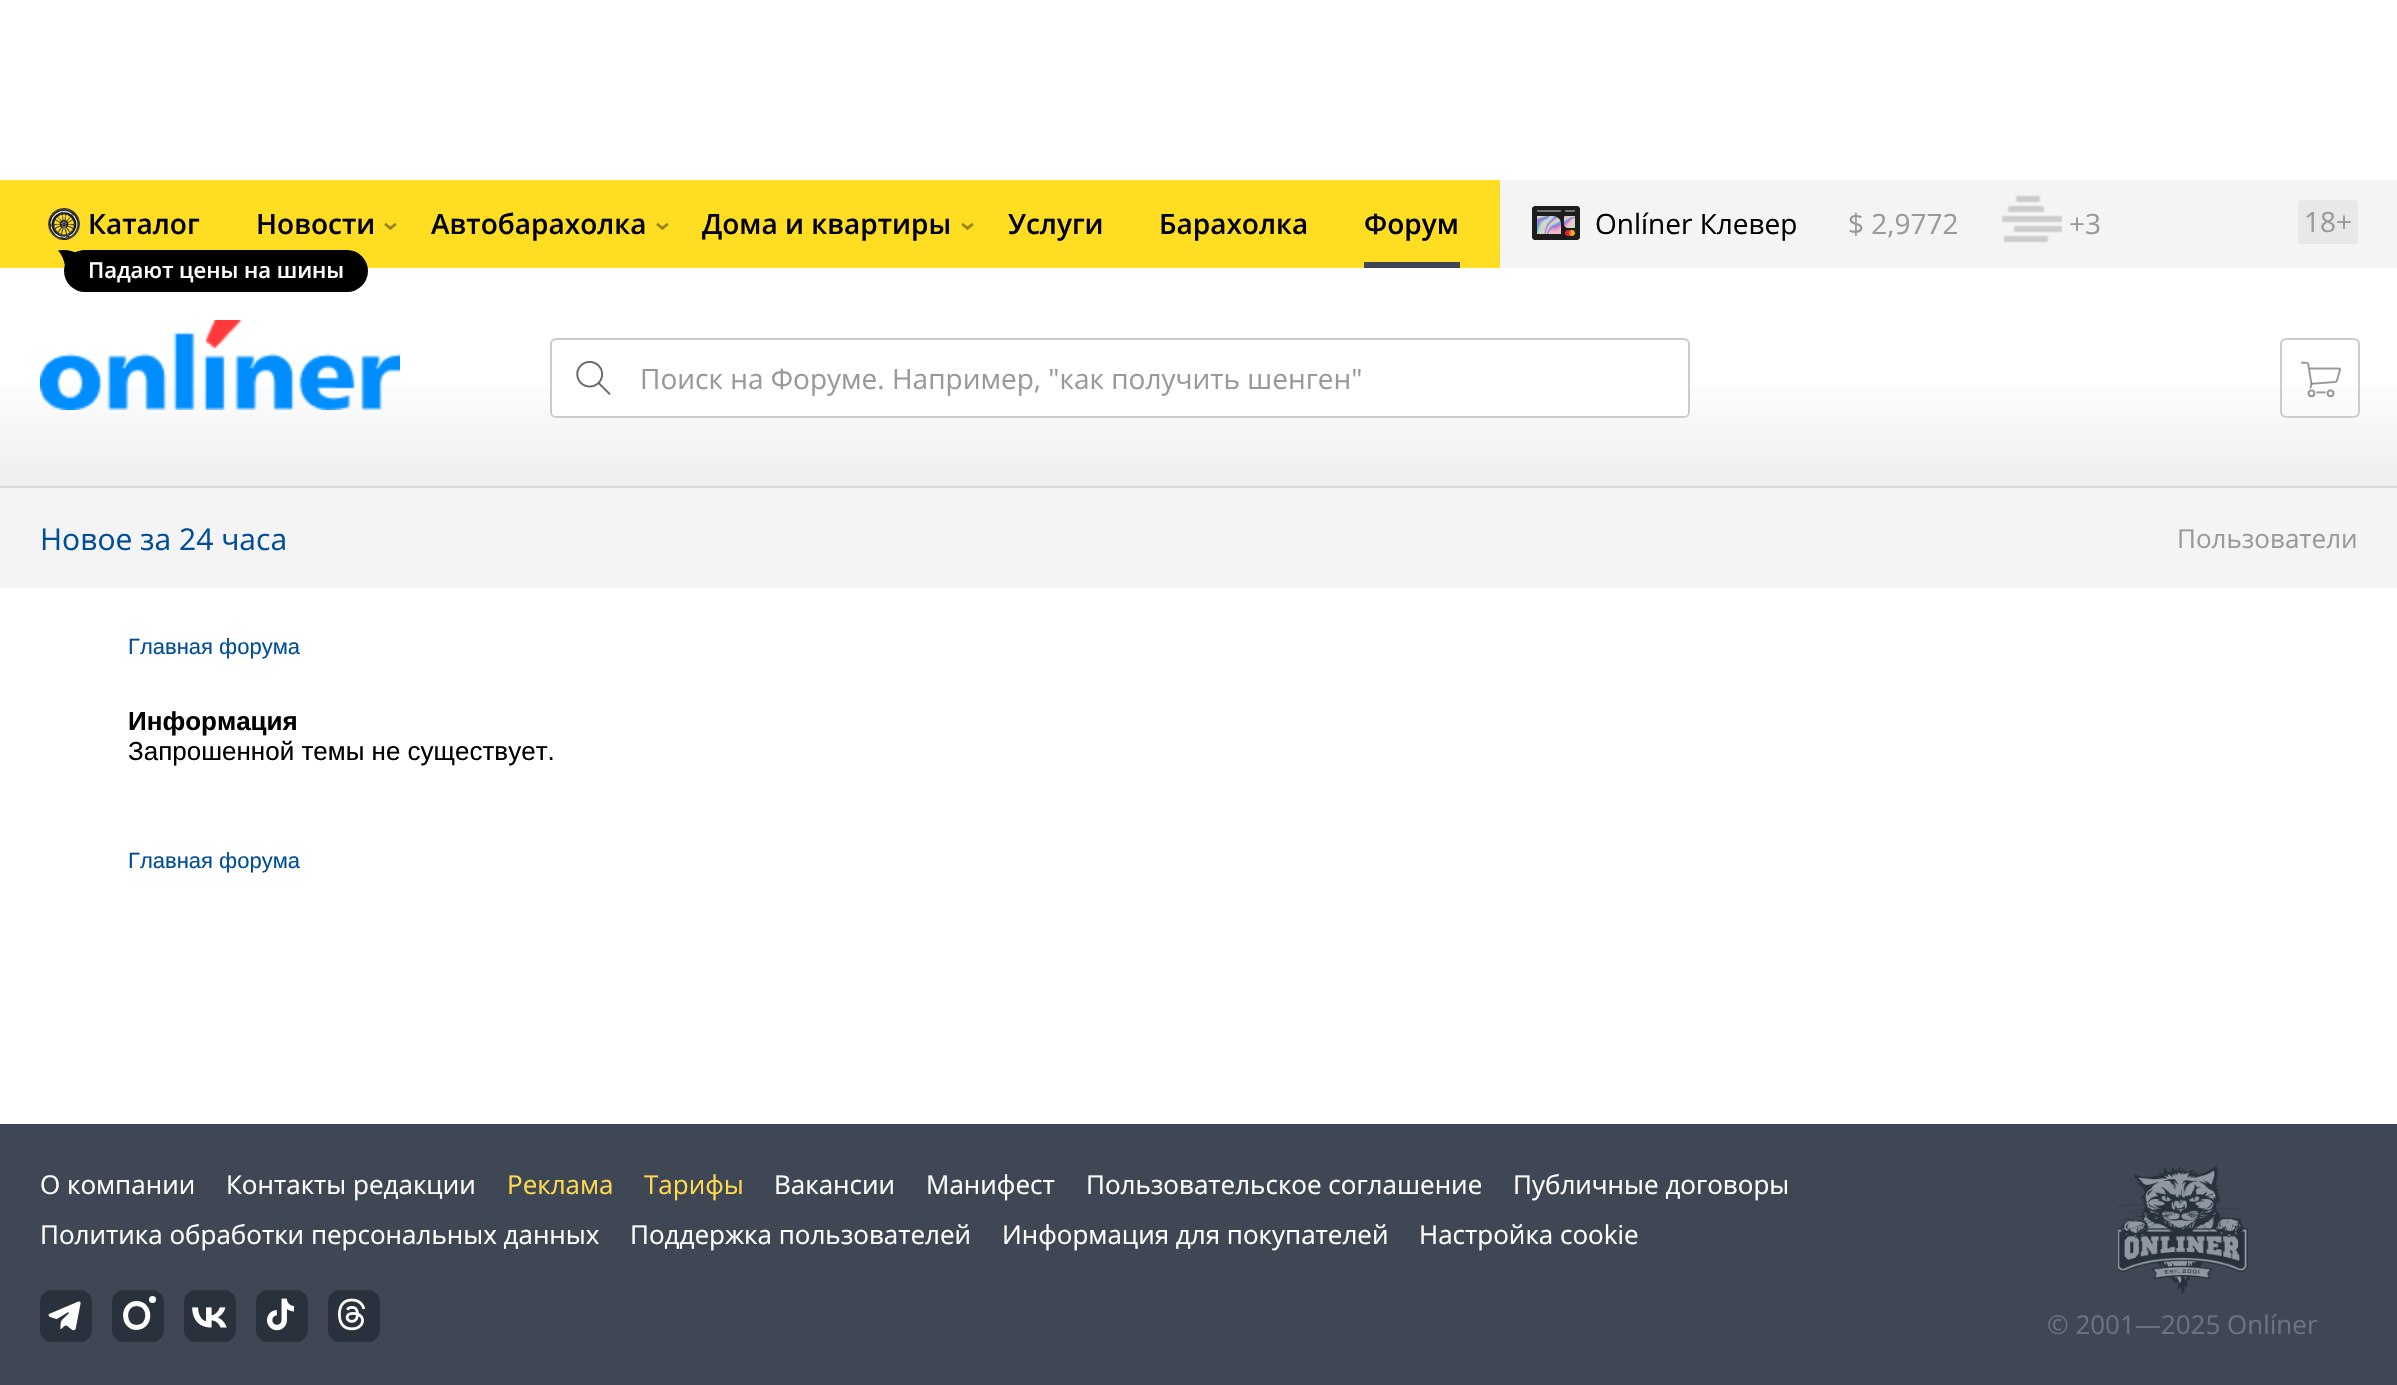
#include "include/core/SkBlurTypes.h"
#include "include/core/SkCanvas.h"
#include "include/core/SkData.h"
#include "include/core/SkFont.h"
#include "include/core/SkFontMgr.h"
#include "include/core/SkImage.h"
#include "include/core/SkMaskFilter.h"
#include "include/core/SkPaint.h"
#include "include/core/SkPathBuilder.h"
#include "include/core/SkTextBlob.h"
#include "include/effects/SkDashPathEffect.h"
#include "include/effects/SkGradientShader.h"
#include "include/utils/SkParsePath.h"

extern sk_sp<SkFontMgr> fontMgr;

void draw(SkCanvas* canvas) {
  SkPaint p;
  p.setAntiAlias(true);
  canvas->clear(SK_ColorWHITE);
  {
    const SkColor colors[] = {SK_ColorWHITE, SK_ColorWHITE, SkColorSetRGB(227, 227, 227)};
    const float stops[] = {0, 0.5f, 1};
    const SkPoint ends[] = {{1199, 180}, {1199, 560}};
    p.setShader(SkGradientShader::MakeLinear(ends, colors, stops, 3, SkTileMode::kClamp));
    p.setAlpha(255);
  }
  canvas->drawRect(SkRect::MakeLTRB(0, 387, 2397, 486), p);
  p.setShader(nullptr);
  p.setColor(SkColorSetRGB(244, 244, 244));
  canvas->drawRect(SkRect::MakeLTRB(1500, 180, 2397, 268), p);
  p.setColor(SkColorSetRGB(255, 221, 34));
  canvas->drawRect(SkRect::MakeLTRB(0, 180, 1500, 268), p);
  canvas->drawImageRect(SkImages::DeferredFromEncodedData(SkData::MakeFromFileName("images/1.png")), SkRect::MakeLTRB(48, 208, 80, 240), SkSamplingOptions());
  p.setColor(SK_ColorBLACK);
  canvas->drawRoundRect(SkRect::MakeLTRB(64, 250, 368, 292), 21, 21, p);
  canvas->drawImageRect(SkImages::DeferredFromEncodedData(SkData::MakeFromFileName("images/2.png")), SkRect::MakeLTRB(58, 250, 84, 266), SkSamplingOptions());
  p.setColor(SkColorSetRGB(62, 71, 83));
  canvas->drawRect(SkRect::MakeLTRB(1364, 262, 1460, 268), p);
  canvas->drawImageRect(SkImages::DeferredFromEncodedData(SkData::MakeFromFileName("images/3.png")), SkRect::MakeLTRB(1532, 206, 1580, 240), SkSamplingOptions());
  canvas->drawImageRect(SkImages::DeferredFromEncodedData(SkData::MakeFromFileName("images/4.png")), SkRect::MakeLTRB(2001, 195, 2062, 243), SkSamplingOptions());
  p.setColor(SkColorSetRGB(232, 232, 232));
  canvas->drawRoundRect(SkRect::MakeLTRB(2298, 200, 2358, 244), 4, 4, p);
  canvas->drawImageRect(SkImages::DeferredFromEncodedData(SkData::MakeFromFileName("images/5.png")), SkRect::MakeLTRB(40, 320, 400, 410), SkSamplingOptions());
  p.setColor(SK_ColorWHITE);
  canvas->drawRoundRect(SkRect::MakeLTRB(550, 338, 1690, 418), 6, 6, p);
  canvas->drawImageRect(SkImages::DeferredFromEncodedData(SkData::MakeFromFileName("images/6.png")), SkRect::MakeLTRB(576, 361, 611, 395), SkSamplingOptions());
  p.setStyle(SkPaint::kStroke_Style);
  p.setStrokeWidth(2);
  p.setColor(SkColorSetRGB(204, 204, 204));
  canvas->drawRoundRect(SkRect::MakeLTRB(551, 339, 1689, 417), 5, 5, p);
  canvas->drawRoundRect(SkRect::MakeLTRB(2281, 339, 2359, 417), 5, 5, p);
  canvas->drawImageRect(SkImages::DeferredFromEncodedData(SkData::MakeFromFileName("images/7.png")), SkRect::MakeLTRB(2301, 361, 2341, 398), SkSamplingOptions());
  p.setStyle(SkPaint::kFill_Style);
  p.setColor(SkColorSetRGB(216, 216, 216));
  canvas->drawRect(SkRect::MakeLTRB(0, 486, 2397, 488), p);
  p.setColor(SkColorSetRGB(244, 244, 244));
  canvas->drawRect(SkRect::MakeLTRB(0, 488, 2397, 588), p);
  p.setColor(SkColorSetRGB(62, 71, 83));
  canvas->drawRect(SkRect::MakeLTRB(0, 1124, 2397, 1385), p);
  p.setColor(SkColorSetRGB(40, 49, 60));
  canvas->drawRoundRect(SkRect::MakeLTRB(40, 1290, 92, 1342), 12, 12, p);
  canvas->drawImageRect(SkImages::DeferredFromEncodedData(SkData::MakeFromFileName("images/8.png")), SkRect::MakeLTRB(48, 1301, 81, 1331), SkSamplingOptions());
  canvas->drawRoundRect(SkRect::MakeLTRB(112, 1290, 164, 1342), 12, 12, p);
  p.setStyle(SkPaint::kStroke_Style);
  p.setStrokeWidth(5);
  p.setColor(SK_ColorWHITE);
  canvas->drawPath(SkPathBuilder().moveTo(136.5f, 1303.5f).cubicTo(151.5f, 1303.5f, 151.5f, 1327.5f, 136.5f, 1327.5f).cubicTo(122, 1327.5f, 122, 1303.5f, 136.5f, 1303.5f).close().detach(), p);
  p.setStyle(SkPaint::kFill_Style);
  canvas->drawCircle(152.5f, 1299.5f, 3.5f, p);
  p.setColor(SkColorSetRGB(40, 49, 60));
  canvas->drawRoundRect(SkRect::MakeLTRB(184, 1290, 236, 1342), 12, 12, p);
  canvas->drawImageRect(SkImages::DeferredFromEncodedData(SkData::MakeFromFileName("images/9.png")), SkRect::MakeLTRB(192, 1307, 227, 1328), SkSamplingOptions());
  canvas->drawRoundRect(SkRect::MakeLTRB(256, 1290, 308, 1342), 12, 12, p);
  canvas->drawImageRect(SkImages::DeferredFromEncodedData(SkData::MakeFromFileName("images/10.png")), SkRect::MakeLTRB(267, 1298, 294, 1331), SkSamplingOptions());
  canvas->drawRoundRect(SkRect::MakeLTRB(328, 1290, 380, 1342), 12, 12, p);
  canvas->drawImageRect(SkImages::DeferredFromEncodedData(SkData::MakeFromFileName("images/11.png")), SkRect::MakeLTRB(338, 1298, 366, 1331), SkSamplingOptions());
  canvas->drawImageRect(SkImages::DeferredFromEncodedData(SkData::MakeFromFileName("images/12.png")), SkRect::MakeLTRB(2118, 1166, 2248, 1294), SkSamplingOptions());
  SkFont font1(fontMgr->matchFamilyStyle("Open Sans", SkFontStyle(600, SkFontStyle::kNormal_Width, SkFontStyle::kUpright_Slant)), 28);
  font1.setSubpixel(true);
  p.setColor(SK_ColorBLACK);
  canvas->drawString("Каталог", 88, 234, font1, p);
  SkFont font2(fontMgr->matchFamilyStyle("Open Sans", SkFontStyle(600, SkFontStyle::kNormal_Width, SkFontStyle::kUpright_Slant)), 22);
  font2.setSubpixel(true);
  p.setColor(SK_ColorWHITE);
  canvas->drawString("Падают цены на шины", 88, 278, font2, p);
  p.setColor(SK_ColorBLACK);
  canvas->drawString("Автобарахолка", 431, 234, font1, p);
  p.setColor(SkColorSetRGB(153, 133, 20));
  canvas->save();
  canvas->rotate(-90, 670, 231);
  canvas->drawString("‹", 670, 231, font1, p);
  canvas->restore();
  p.setColor(SK_ColorBLACK);
  canvas->drawString("Форум", 1364, 234, font1, p);
  canvas->drawString("Новости", 256, 234, font1, p);
  p.setColor(SkColorSetRGB(153, 133, 20));
  canvas->save();
  canvas->rotate(-90, 398, 231);
  canvas->drawString("‹", 398, 231, font1, p);
  canvas->restore();
  p.setColor(SK_ColorBLACK);
  canvas->drawString("Дома и квартиры", 702, 234, font1, p);
  p.setColor(SkColorSetRGB(153, 133, 20));
  canvas->save();
  canvas->rotate(-90, 975, 231);
  canvas->drawString("‹", 975, 231, font1, p);
  canvas->restore();
  p.setColor(SK_ColorBLACK);
  canvas->drawString("Услуги", 1008, 234, font1, p);
  canvas->drawString("Барахолка", 1159, 234, font1, p);
  SkFont font3(fontMgr->matchFamilyStyle("Open Sans", SkFontStyle::Normal()), 28);
  font3.setSubpixel(true);
  canvas->drawString("Onlíner Клевер", 1595, 234, font3, p);
  p.setColor(SkColorSetRGB(153, 153, 153));
  canvas->drawString("$ 2,9772", 1848, 234, font3, p);
  canvas->drawString("+3", 2069, 234, font3, p);
  canvas->drawString("18+", 2304, 232, font3, p);
  canvas->drawString("Поиск на Форуме. Например, \"как получить шенген\"", 640, 389, font3, p);
  SkFont font4(fontMgr->matchFamilyStyle("Open Sans", SkFontStyle::Normal()), 30);
  font4.setSubpixel(true);
  p.setColor(SkColorSetRGB(0, 77, 153));
  canvas->drawString("Новое за 24 часа", 40, 550, font4, p);
  SkFont font5(fontMgr->matchFamilyStyle("Open Sans", SkFontStyle::Normal()), 26);
  font5.setSubpixel(true);
  p.setColor(SkColorSetRGB(153, 153, 153));
  canvas->drawString("Пользователи", 2177, 548, font5, p);
  SkFont font6(fontMgr->matchFamilyStyle("Liberation Sans", SkFontStyle::Normal()), 22);
  font6.setSubpixel(true);
  p.setColor(SkColorSetRGB(0, 77, 153));
  canvas->drawString("Главная форума", 128, 654, font6, p);
  SkFont font7(fontMgr->matchFamilyStyle("Liberation Sans", SkFontStyle::Bold()), 26);
  font7.setSubpixel(true);
  p.setColor(SK_ColorBLACK);
  canvas->drawString("Информация", 128, 730, font7, p);
  SkFont font8(fontMgr->matchFamilyStyle("Liberation Sans", SkFontStyle::Normal()), 26);
  font8.setSubpixel(true);
  canvas->drawString("Запрошенной темы не существует.", 128, 760, font8, p);
  p.setColor(SkColorSetRGB(0, 77, 153));
  canvas->drawString("Главная форума", 128, 868, font6, p);
  p.setColor(SK_ColorWHITE);
  canvas->drawString("О компании", 40, 1194, font5, p);
  canvas->drawString("Контакты редакции", 226, 1194, font5, p);
  p.setColor(SkColorSetRGB(255, 218, 80));
  canvas->drawString("Реклама", 507, 1194, font5, p);
  canvas->drawString("Тарифы", 644, 1194, font5, p);
  p.setColor(SK_ColorWHITE);
  canvas->drawString("Вакансии", 774, 1194, font5, p);
  canvas->drawString("Манифест", 926, 1194, font5, p);
  canvas->drawString("Пользовательское соглашение", 1086, 1194, font5, p);
  canvas->drawString("Публичные договоры", 1513, 1194, font5, p);
  canvas->drawString("Политика обработки персональных данных", 40, 1244, font5, p);
  canvas->drawString("Поддержка пользователей", 630, 1244, font5, p);
  canvas->drawString("Информация для покупателей", 1002, 1244, font5, p);
  canvas->drawString("Настройка cookie", 1419, 1244, font5, p);
  p.setColor(SkColorSetRGB(107, 115, 127));
  canvas->drawString("© 2001—2025 Onlíner", 2047, 1334, font5, p);
}
